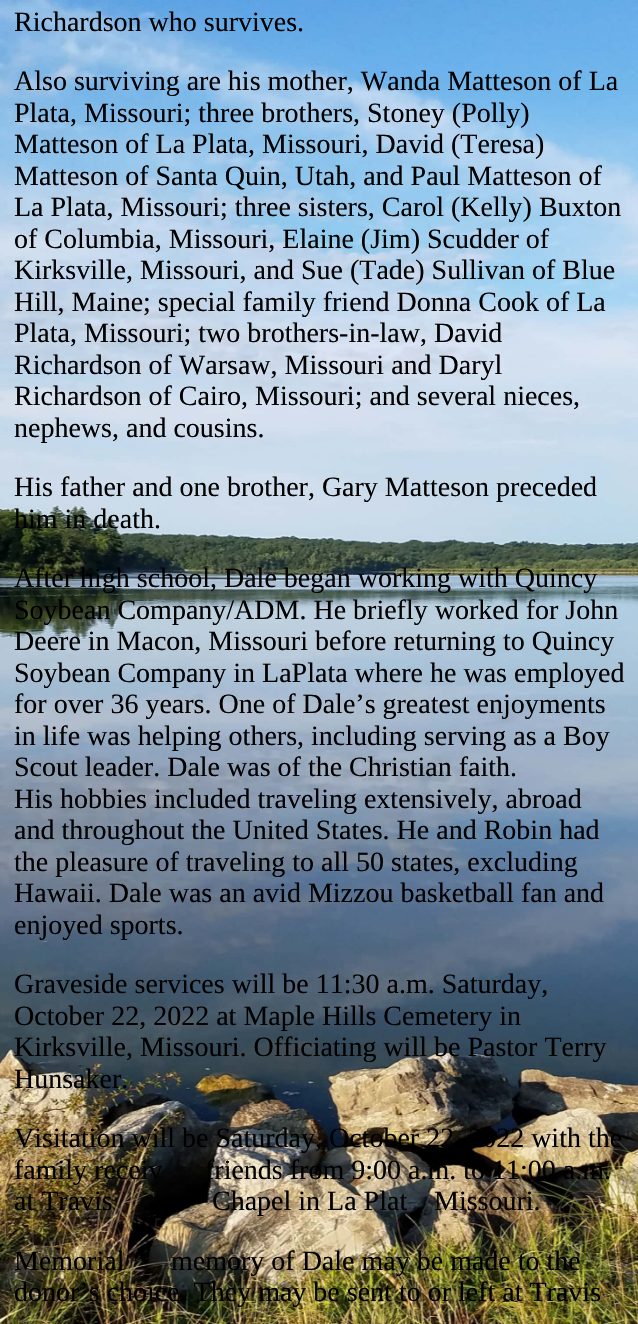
#include "include/core/SkBlurTypes.h"
#include "include/core/SkCanvas.h"
#include "include/core/SkData.h"
#include "include/core/SkFont.h"
#include "include/core/SkFontMgr.h"
#include "include/core/SkImage.h"
#include "include/core/SkMaskFilter.h"
#include "include/core/SkPaint.h"
#include "include/core/SkPathBuilder.h"
#include "include/core/SkTextBlob.h"
#include "include/effects/SkDashPathEffect.h"
#include "include/effects/SkGradientShader.h"
#include "include/utils/SkParsePath.h"

extern sk_sp<SkFontMgr> fontMgr;

void draw(SkCanvas* canvas) {
  SkPaint p;
  p.setAntiAlias(true);
  canvas->clear(SK_ColorWHITE);
  canvas->drawImageRect(SkImages::DeferredFromEncodedData(SkData::MakeFromFileName("images/1.png")), SkRect::MakeLTRB(0, 0, 638, 1324), SkSamplingOptions());
  SkFont font1(fontMgr->matchFamilyStyle("Liberation Serif", SkFontStyle::Normal()), 28);
  font1.setSubpixel(true);
  p.setColor(SK_ColorBLACK);
  canvas->drawString("Richardson who survives.", 14, 31, font1, p);
  canvas->drawString("Also surviving are his mother, Wanda Matteson of La", 14, 90, font1, p);
  canvas->drawString("Plata, Missouri; three brothers, Stoney (Polly)", 14, 122, font1, p);
  canvas->drawString("Matteson of La Plata, Missouri, David (Teresa)", 14, 153, font1, p);
  canvas->drawString("Matteson of Santa Quin, Utah, and Paul Matteson of", 14, 185, font1, p);
  canvas->drawString("La Plata, Missouri; three sisters, Carol (Kelly) Buxton", 14, 216, font1, p);
  canvas->drawString("of Columbia, Missouri, Elaine (Jim) Scudder of", 14, 248, font1, p);
  canvas->drawString("Kirksville, Missouri, and Sue (Tade) Sullivan of Blue", 14, 279, font1, p);
  canvas->drawString("Hill, Maine; special family friend Donna Cook of La", 14, 311, font1, p);
  canvas->drawString("Plata, Missouri; two brothers-in-law, David", 14, 342, font1, p);
  canvas->drawString("Richardson of Warsaw, Missouri and Daryl", 14, 374, font1, p);
  canvas->drawString("Richardson of Cairo, Missouri; and several nieces,", 14, 405, font1, p);
  canvas->drawString("nephews, and cousins.", 14, 437, font1, p);
  canvas->drawString("His father and one brother, Gary Matteson preceded", 14, 496, font1, p);
  canvas->drawString("him in death.", 14, 528, font1, p);
  canvas->drawString("After high school, Dale began working with Quincy", 14, 587, font1, p);
  canvas->drawString("Soybean Company/ADM. He briefly worked for John", 14, 619, font1, p);
  canvas->drawString("Deere in Macon, Missouri before returning to Quincy", 14, 650, font1, p);
  canvas->drawString("Soybean Company in LaPlata where he was employed", 14, 682, font1, p);
  canvas->drawString("for over 36 years. One of Dale’s greatest enjoyments", 14, 713, font1, p);
  canvas->drawString("in life was helping others, including serving as a Boy", 14, 745, font1, p);
  canvas->drawString("Scout leader. Dale was of the Christian faith.", 14, 776, font1, p);
  canvas->drawString("His hobbies included traveling extensively, abroad", 14, 808, font1, p);
  canvas->drawString("and throughout the United States. He and Robin had", 14, 839, font1, p);
  canvas->drawString("the pleasure of traveling to all 50 states, excluding", 14, 871, font1, p);
  canvas->drawString("Hawaii. Dale was an avid Mizzou basketball fan and", 14, 902, font1, p);
  canvas->drawString("enjoyed sports.", 14, 934, font1, p);
  canvas->drawString("Graveside services will be 11:30 a.m. Saturday,", 14, 993, font1, p);
  canvas->drawString("October 22, 2022 at Maple Hills Cemetery in", 14, 1025, font1, p);
  canvas->drawString("Kirksville, Missouri. Officiating will be Pastor Terry", 14, 1056, font1, p);
  canvas->drawString("Hunsaker.", 14, 1088, font1, p);
  canvas->drawString("Visitation will be Saturday, October 22, 2022 with the", 14, 1147, font1, p);
  canvas->drawString("family receiv", 14, 1179, font1, p);
  canvas->drawString("friends from 9:00 a.m. to 11:00 a.m.", 205, 1179, font1, p);
  canvas->drawString("at Travis", 14, 1210, font1, p);
  canvas->drawString("Chapel in La Plat", 212, 1210, font1, p);
  canvas->drawString("Missouri.", 434, 1210, font1, p);
  canvas->drawString("Memorial", 14, 1270, font1, p);
  canvas->drawString("memory of Dale may be made to the", 171, 1270, font1, p);
  canvas->drawString("donor’s choice. They may be sent to or left at Travis", 14, 1301, font1, p);
}
